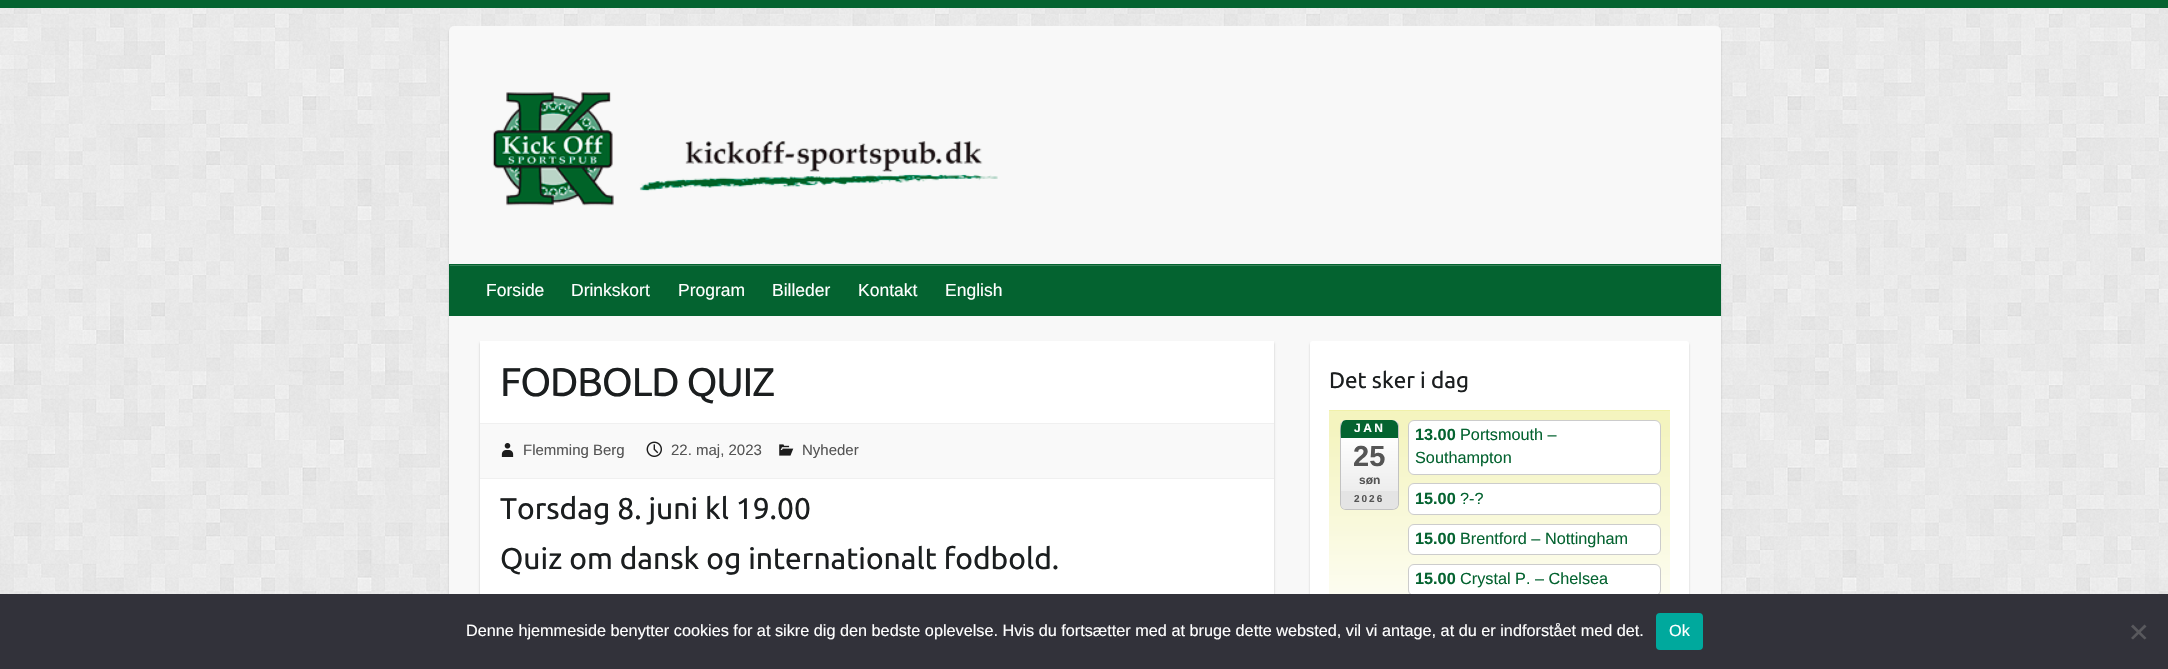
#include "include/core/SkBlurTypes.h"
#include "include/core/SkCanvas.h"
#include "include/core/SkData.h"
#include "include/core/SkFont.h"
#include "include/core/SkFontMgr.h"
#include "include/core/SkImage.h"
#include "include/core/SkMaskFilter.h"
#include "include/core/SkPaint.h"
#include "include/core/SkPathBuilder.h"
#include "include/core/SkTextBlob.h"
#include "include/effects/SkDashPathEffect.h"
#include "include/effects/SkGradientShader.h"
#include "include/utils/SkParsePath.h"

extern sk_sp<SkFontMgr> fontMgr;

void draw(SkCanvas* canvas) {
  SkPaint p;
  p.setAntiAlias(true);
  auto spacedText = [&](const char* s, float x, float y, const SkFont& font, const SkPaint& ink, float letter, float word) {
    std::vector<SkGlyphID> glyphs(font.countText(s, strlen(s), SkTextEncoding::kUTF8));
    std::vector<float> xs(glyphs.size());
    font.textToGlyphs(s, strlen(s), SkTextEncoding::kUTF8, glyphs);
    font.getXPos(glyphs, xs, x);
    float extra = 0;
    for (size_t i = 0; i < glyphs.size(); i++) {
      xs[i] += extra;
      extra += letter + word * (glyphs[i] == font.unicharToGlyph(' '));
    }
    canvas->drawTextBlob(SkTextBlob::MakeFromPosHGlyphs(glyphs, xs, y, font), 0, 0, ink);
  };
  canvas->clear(SK_ColorWHITE);
  canvas->drawImageRect(SkImages::DeferredFromEncodedData(SkData::MakeFromFileName("images/1.png")), SkRect::MakeLTRB(0, 8, 2168, 594), SkSamplingOptions());
  p.setColor(SkColorSetRGB(4, 99, 48));
  canvas->drawRect(SkRect::MakeLTRB(0, 0, 2168, 8), p);
  p.setColor(SkColorSetARGB(51, 0, 0, 0));
  p.setMaskFilter(SkMaskFilter::MakeBlur(kNormal_SkBlurStyle, 1));
  canvas->drawRoundRect(SkRect::MakeLTRB(449, 28, 1721, 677), 5, 5, p);
  p.setMaskFilter(nullptr);
  p.setColor(SkColorSetRGB(248, 248, 248));
  canvas->drawRoundRect(SkRect::MakeLTRB(449, 26, 1721, 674), 5, 5, p);
  canvas->drawImageRect(SkImages::DeferredFromEncodedData(SkData::MakeFromFileName("images/2.png")), SkRect::MakeLTRB(492, 92, 998, 206), SkSamplingOptions());
  p.setColor(SkColorSetRGB(4, 99, 48));
  canvas->drawRect(SkRect::MakeLTRB(449, 264, 1721, 316), p);
  p.setColor(SkColorSetRGB(54, 130, 89));
  canvas->drawRect(SkRect::MakeLTRB(450, 265, 1720, 266), p);
  p.setColor(SkColorSetARGB(51, 0, 0, 0));
  p.setMaskFilter(SkMaskFilter::MakeBlur(kNormal_SkBlurStyle, 1));
  canvas->drawRect(SkRect::MakeLTRB(480, 343, 1274, 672), p);
  p.setMaskFilter(nullptr);
  p.setColor(SK_ColorWHITE);
  canvas->drawRect(SkRect::MakeLTRB(480, 341, 1274, 594), p);
  p.setColor(SkColorSetRGB(249, 249, 249));
  canvas->drawRect(SkRect::MakeLTRB(480, 424, 1274, 478), p);
  p.setColor(SkColorSetRGB(240, 240, 240));
  canvas->drawRect(SkRect::MakeLTRB(480, 423, 1274, 424), p);
  canvas->drawRect(SkRect::MakeLTRB(480, 478, 1274, 479), p);
  canvas->drawImageRect(SkImages::DeferredFromEncodedData(SkData::MakeFromFileName("images/3.png")), SkRect::MakeLTRB(501, 443, 514, 457), SkSamplingOptions());
  canvas->drawImageRect(SkImages::DeferredFromEncodedData(SkData::MakeFromFileName("images/4.png")), SkRect::MakeLTRB(646, 441, 662, 457), SkSamplingOptions());
  canvas->drawImageRect(SkImages::DeferredFromEncodedData(SkData::MakeFromFileName("images/5.png")), SkRect::MakeLTRB(779, 444, 794, 456), SkSamplingOptions());
  p.setColor(SkColorSetARGB(51, 0, 0, 0));
  p.setMaskFilter(SkMaskFilter::MakeBlur(kNormal_SkBlurStyle, 1));
  canvas->drawRoundRect(SkRect::MakeLTRB(1310, 343, 1689, 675), 2.5f, 2.5f, p);
  p.setMaskFilter(nullptr);
  p.setColor(SK_ColorWHITE);
  canvas->drawRoundRect(SkRect::MakeLTRB(1310, 341, 1689, 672), 2.5f, 2.5f, p);
  {
    const SkColor colors[] = {SkColorSetRGB(244, 244, 191), SkColorSetRGB(244, 244, 191), SK_ColorWHITE};
    const float stops[] = {0, 0.07f, 1};
    const SkPoint ends[] = {{1499, 411}, {1499, 644}};
    p.setShader(SkGradientShader::MakeLinear(ends, colors, stops, 3, SkTileMode::kClamp));
    p.setAlpha(255);
  }
  canvas->drawRect(SkRect::MakeLTRB(1329, 411, 1670, 594), p);
  p.setShader(nullptr);
  p.setColor(SkColorSetRGB(240, 240, 169));
  canvas->drawRect(SkRect::MakeLTRB(1329, 410, 1670, 411), p);
  canvas->save();
  canvas->clipPath(SkPathBuilder().moveTo(1346, 420).lineTo(1393, 420).cubicTo(1396.5f, 420, 1399, 422.5f, 1399, 426).lineTo(1399, 504).cubicTo(1399, 507.5f, 1396.5f, 510, 1393, 510).lineTo(1346, 510).cubicTo(1342.5f, 510, 1340, 507.5f, 1340, 504).lineTo(1340, 426).cubicTo(1340, 422.5f, 1342.5f, 420, 1346, 420).close().detach(), true);
  {
    const SkColor colors[] = {SK_ColorWHITE, SK_ColorWHITE, SkColorSetRGB(231, 231, 231)};
    const float stops[] = {0, 0.16f, 1};
    const SkPoint ends[] = {{1369, 420}, {1369, 509}};
    p.setShader(SkGradientShader::MakeLinear(ends, colors, stops, 3, SkTileMode::kClamp));
    p.setAlpha(255);
  }
  canvas->drawRect(SkRect::MakeLTRB(1341, 420, 1398, 509), p);
  canvas->restore();
  p.setShader(nullptr);
  p.setColor(SkColorSetRGB(194, 194, 194));
  canvas->drawPath(SkPathBuilder(SkPathFillType::kEvenOdd).moveTo(1346, 420).lineTo(1392, 420).cubicTo(1396, 420, 1399, 423, 1399, 426).lineTo(1399, 504).cubicTo(1399, 507, 1396, 510, 1392, 510).lineTo(1346, 510).cubicTo(1343, 510, 1340, 507, 1340, 504).lineTo(1340, 426).cubicTo(1340, 423, 1343, 420, 1346, 420).close().moveTo(1346, 420).lineTo(1392, 420).cubicTo(1395, 420, 1398, 423, 1398, 426).lineTo(1398, 504).cubicTo(1398, 507, 1395, 509, 1392, 509).lineTo(1346, 509).cubicTo(1343, 509, 1341, 507, 1341, 504).lineTo(1341, 426).cubicTo(1341, 423, 1343, 420, 1346, 420).close().detach(), p);
  p.setColor(SkColorSetRGB(4, 99, 48));
  canvas->drawPath(SkPathBuilder().moveTo(1346, 420).lineTo(1392, 420).cubicTo(1395, 420, 1398, 423, 1398, 426).lineTo(1398, 438).lineTo(1341, 438).cubicTo(1341, 434, 1339, 420, 1346, 420).close().detach(), p);
  p.setColor(SkColorSetRGB(228, 228, 228));
  canvas->drawPath(SkPathBuilder().moveTo(1398, 491).lineTo(1398, 504).cubicTo(1398, 507, 1395, 509, 1392, 509).lineTo(1346, 509).cubicTo(1343, 509, 1341, 507, 1341, 504).lineTo(1341, 491).close().detach(), p);
  p.setColor(SK_ColorWHITE);
  canvas->drawRoundRect(SkRect::MakeLTRB(1408.5f, 420.5f, 1660.5f, 474.5f), 5.5f, 5.5f, p);
  p.setStyle(SkPaint::kStroke_Style);
  p.setStrokeWidth(1);
  p.setColor(SkColorSetRGB(204, 204, 204));
  canvas->drawRoundRect(SkRect::MakeLTRB(1408.5f, 420.5f, 1660.5f, 474.5f), 5.5f, 5.5f, p);
  p.setStyle(SkPaint::kFill_Style);
  p.setColor(SK_ColorWHITE);
  canvas->drawRoundRect(SkRect::MakeLTRB(1408.5f, 483.5f, 1660.5f, 514.5f), 5.5f, 5.5f, p);
  p.setStyle(SkPaint::kStroke_Style);
  p.setColor(SkColorSetRGB(204, 204, 204));
  canvas->drawRoundRect(SkRect::MakeLTRB(1408.5f, 483.5f, 1660.5f, 514.5f), 5.5f, 5.5f, p);
  p.setStyle(SkPaint::kFill_Style);
  p.setColor(SK_ColorWHITE);
  canvas->drawRoundRect(SkRect::MakeLTRB(1408.5f, 524.5f, 1660.5f, 554.5f), 5.5f, 5.5f, p);
  p.setStyle(SkPaint::kStroke_Style);
  p.setColor(SkColorSetRGB(204, 204, 204));
  canvas->drawRoundRect(SkRect::MakeLTRB(1408.5f, 524.5f, 1660.5f, 554.5f), 5.5f, 5.5f, p);
  p.setStyle(SkPaint::kFill_Style);
  p.setColor(SK_ColorWHITE);
  canvas->drawRoundRect(SkRect::MakeLTRB(1408.5f, 564.5f, 1660.5f, 595.5f), 5.5f, 5.5f, p);
  p.setStyle(SkPaint::kStroke_Style);
  p.setColor(SkColorSetRGB(204, 204, 204));
  canvas->drawRoundRect(SkRect::MakeLTRB(1408.5f, 564.5f, 1660.5f, 595.5f), 5.5f, 5.5f, p);
  p.setStyle(SkPaint::kFill_Style);
  p.setColor(SkColorSetRGB(50, 50, 58));
  canvas->drawRect(SkRect::MakeLTRB(0, 594, 2168, 669), p);
  p.setColor(SkColorSetRGB(0, 169, 157));
  canvas->drawRoundRect(SkRect::MakeLTRB(1656, 613, 1703, 650), 4, 4, p);
  p.setColor(SkColorSetRGB(89, 89, 93));
  canvas->drawPath(SkPathBuilder().moveTo(2144.5f, 624.5f).lineTo(2146.5f, 626.5f).lineTo(2133, 639.5f).lineTo(2131, 638).close().detach(), p);
  canvas->drawPath(SkPathBuilder().moveTo(2131, 626.5f).lineTo(2133, 624.5f).lineTo(2146.5f, 638).lineTo(2144.5f, 639.5f).close().detach(), p);
  SkFont font1(fontMgr->matchFamilyStyle("Liberation Sans", SkFontStyle::Normal()), 17.5f);
  font1.setSubpixel(true);
  p.setColor(SK_ColorWHITE);
  canvas->drawString("Forside", 486, 296, font1, p);
  canvas->drawString("Drinkskort", 571, 296, font1, p);
  canvas->drawString("Program", 678, 296, font1, p);
  canvas->drawString("Billeder", 772, 296, font1, p);
  canvas->drawString("Kontakt", 858, 296, font1, p);
  canvas->drawString("English", 945, 296, font1, p);
  SkFont font2(fontMgr->matchFamilyStyle("Ubuntu", SkFontStyle::Normal()), 40);
  font2.setSubpixel(true);
  p.setColor(SkColorSetRGB(27, 30, 31));
  spacedText("FODBOLD QUIZ", 500, 396, font2, p, -1.25f, 0);
  SkFont font3(fontMgr->matchFamilyStyle("Liberation Sans", SkFontStyle::Normal()), 15);
  font3.setSubpixel(true);
  p.setColor(SkColorSetRGB(85, 85, 85));
  canvas->drawString("Flemming Berg", 523, 455, font3, p);
  canvas->drawString("22. maj, 2023", 671, 455, font3, p);
  canvas->drawString("Nyheder", 802, 455, font3, p);
  SkFont font4(fontMgr->matchFamilyStyle("Ubuntu", SkFontStyle::Normal()), 30);
  font4.setSubpixel(true);
  p.setColor(SkColorSetRGB(27, 30, 31));
  canvas->drawString("Torsdag 8. juni kl 19.00", 500, 519, font4, p);
  canvas->drawString("Quiz om dansk og internationalt fodbold.", 500, 569, font4, p);
  SkFont font5(fontMgr->matchFamilyStyle("Ubuntu", SkFontStyle::Normal()), 22.5f);
  font5.setSubpixel(true);
  canvas->drawString("Det sker i dag", 1329, 388, font5, p);
  SkFont font6(fontMgr->matchFamilyStyle("Liberation Sans", SkFontStyle::Bold()), 12);
  font6.setSubpixel(true);
  p.setColor(SK_ColorWHITE);
  spacedText("JAN", 1354, 432, font6, p, 2.5f, 0);
  SkFont font7(fontMgr->matchFamilyStyle("Liberation Sans", SkFontStyle::Bold()), 29);
  font7.setSubpixel(true);
  p.setColor(SkColorSetRGB(85, 85, 85));
  canvas->drawString("25", 1353, 466, font7, p);
  canvas->drawString("søn", 1359, 484, font6, p);
  SkFont font8(fontMgr->matchFamilyStyle("Liberation Sans", SkFontStyle::Bold()), 10);
  font8.setSubpixel(true);
  spacedText("2026", 1354, 502, font8, p, 2, 0);
  SkFont font9(fontMgr->matchFamilyStyle("Liberation Sans", SkFontStyle::Bold()), 16.25f);
  font9.setSubpixel(true);
  p.setColor(SkColorSetRGB(4, 99, 48));
  canvas->drawString("13.00", 1415, 440, font9, p);
  SkFont font10(fontMgr->matchFamilyStyle("Liberation Sans", SkFontStyle::Normal()), 16.25f);
  font10.setSubpixel(true);
  canvas->drawString("Portsmouth –", 1460, 440, font10, p);
  canvas->drawString("Southampton", 1415, 463, font10, p);
  canvas->drawString("15.00", 1415, 504, font9, p);
  canvas->drawString("?-?", 1460, 504, font10, p);
  canvas->drawString("15.00", 1415, 544, font9, p);
  canvas->drawString("Brentford – Nottingham", 1460, 544, font10, p);
  canvas->drawString("15.00", 1415, 584, font9, p);
  canvas->drawString("Crystal P. – Chelsea", 1460, 584, font10, p);
  p.setColor(SK_ColorWHITE);
  canvas->drawString("Denne hjemmeside benytter cookies for at sikre dig den bedste oplevelse. Hvis du fortsætter med at bruge dette websted, vil vi antage, at du er indforstået med det.", 466, 636, font10, p);
  canvas->drawString("Ok", 1669, 636, font10, p);
}
